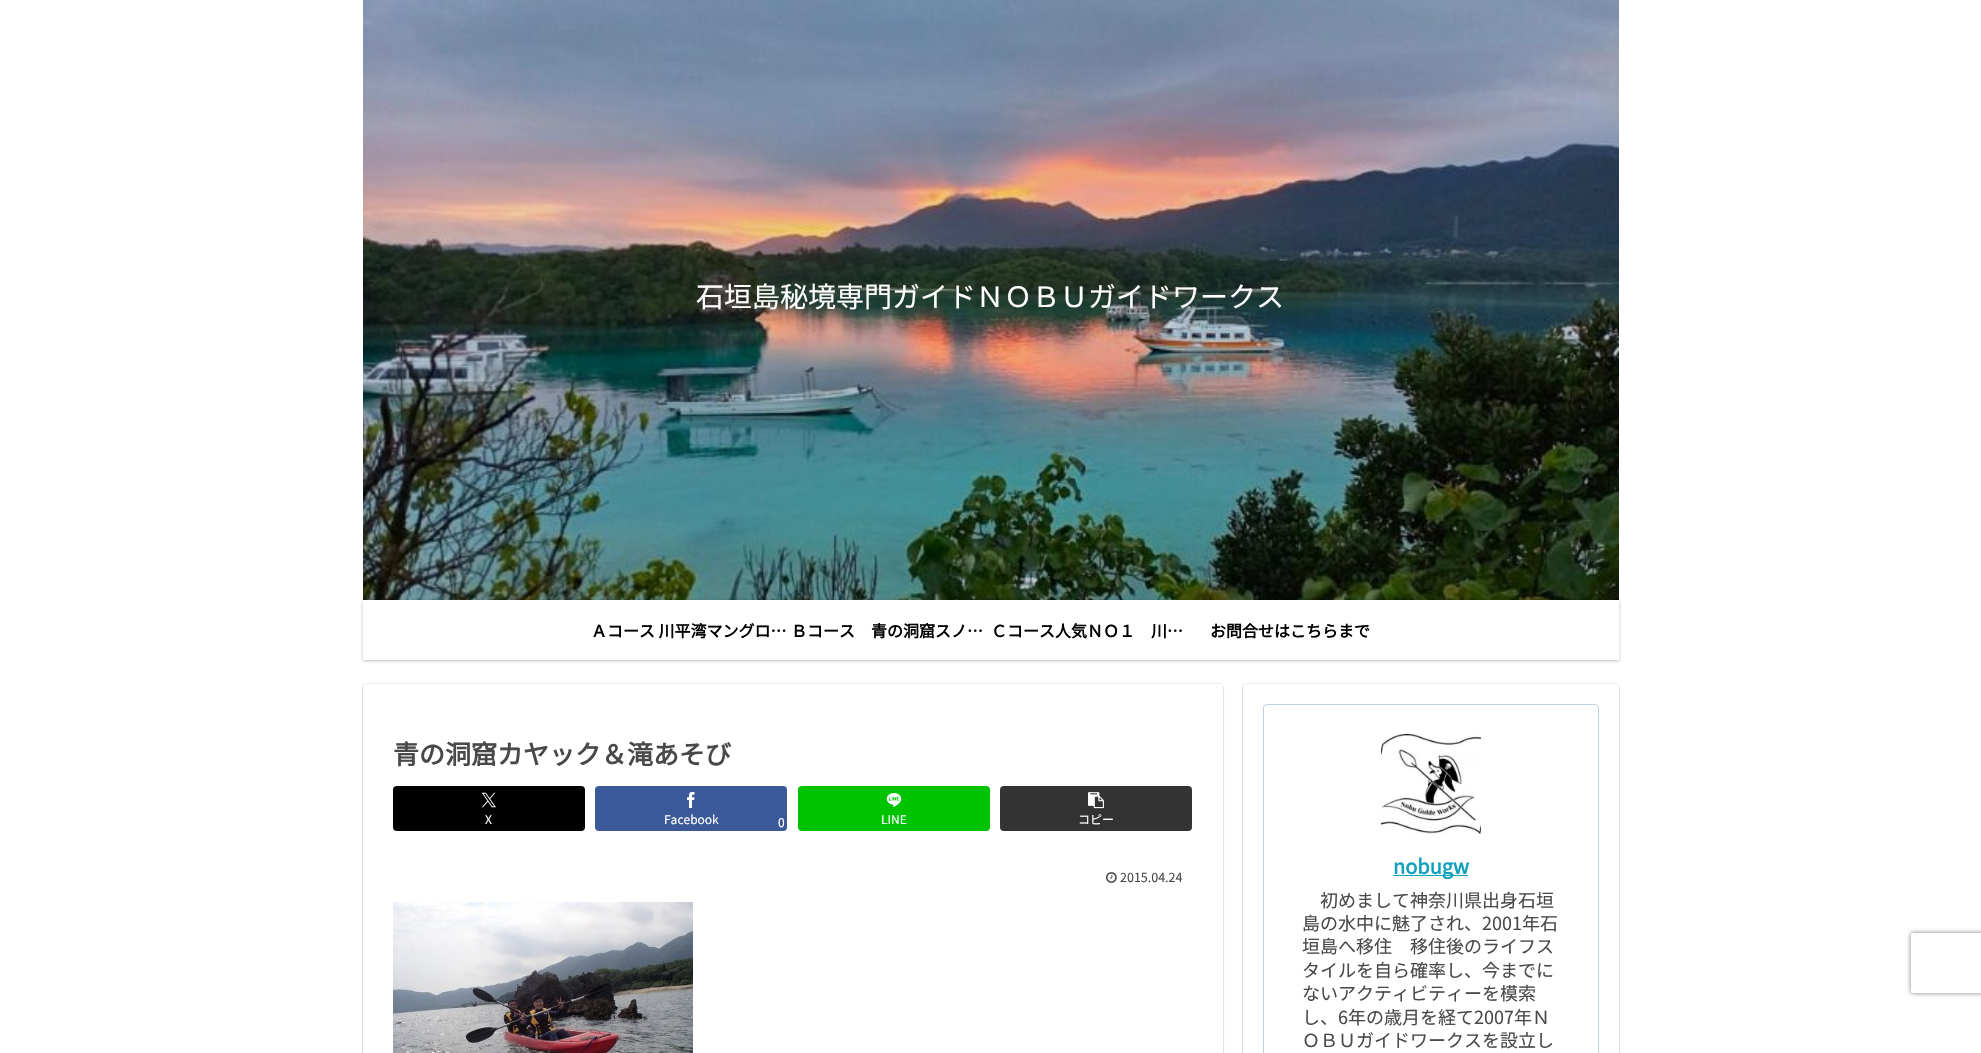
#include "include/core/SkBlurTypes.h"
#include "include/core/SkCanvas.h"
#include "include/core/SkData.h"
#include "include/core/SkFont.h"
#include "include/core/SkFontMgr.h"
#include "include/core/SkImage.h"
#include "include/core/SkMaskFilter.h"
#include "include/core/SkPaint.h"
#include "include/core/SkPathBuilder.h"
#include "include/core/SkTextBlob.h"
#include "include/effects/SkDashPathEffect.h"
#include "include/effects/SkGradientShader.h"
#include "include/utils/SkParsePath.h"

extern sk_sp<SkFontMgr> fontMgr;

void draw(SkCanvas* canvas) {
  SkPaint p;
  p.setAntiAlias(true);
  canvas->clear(SK_ColorWHITE);
  canvas->drawImageRect(SkImages::DeferredFromEncodedData(SkData::MakeFromFileName("images/1.png")), SkRect::MakeLTRB(363, 0, 1619, 600), SkSamplingOptions());
  p.setColor(SkColorSetARGB(64, 0, 0, 0));
  p.setMaskFilter(SkMaskFilter::MakeBlur(kNormal_SkBlurStyle, 1.5f));
  canvas->drawRect(SkRect::MakeLTRB(363, 601, 1619, 661), p);
  p.setMaskFilter(nullptr);
  p.setColor(SK_ColorWHITE);
  canvas->drawRect(SkRect::MakeLTRB(363, 600, 1619, 660), p);
  p.setStyle(SkPaint::kStroke_Style);
  p.setStrokeWidth(1);
  p.setColor(SkColorSetRGB(235, 235, 235));
  canvas->drawRoundRect(SkRect::MakeLTRB(362.5f, 683.5f, 1223.5f, 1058.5f), 4.5f, 4.5f, p);
  p.setStyle(SkPaint::kFill_Style);
  p.setColor(SkColorSetARGB(41, 0, 0, 0));
  p.setMaskFilter(SkMaskFilter::MakeBlur(kNormal_SkBlurStyle, 1));
  canvas->drawRoundRect(SkRect::MakeLTRB(363, 686, 1223, 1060), 4, 4, p);
  p.setMaskFilter(nullptr);
  p.setColor(SK_ColorWHITE);
  canvas->drawRoundRect(SkRect::MakeLTRB(363, 684, 1223, 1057), 4, 4, p);
  p.setColor(SK_ColorBLACK);
  canvas->drawRoundRect(SkRect::MakeLTRB(393, 786, 585, 831), 4, 4, p);
  canvas->drawImageRect(SkImages::DeferredFromEncodedData(SkData::MakeFromFileName("images/2.png")), SkRect::MakeLTRB(481, 792, 496, 808), SkSamplingOptions());
  p.setColor(SkColorSetRGB(59, 89, 152));
  canvas->drawRoundRect(SkRect::MakeLTRB(595, 786, 787, 831), 4, 4, p);
  canvas->drawImageRect(SkImages::DeferredFromEncodedData(SkData::MakeFromFileName("images/3.png")), SkRect::MakeLTRB(687, 792, 695, 808), SkSamplingOptions());
  p.setColor(SkColorSetRGB(0, 195, 0));
  canvas->drawRoundRect(SkRect::MakeLTRB(798, 786, 990, 831), 4, 4, p);
  canvas->drawImageRect(SkImages::DeferredFromEncodedData(SkData::MakeFromFileName("images/4.png")), SkRect::MakeLTRB(886, 793, 902, 807), SkSamplingOptions());
  p.setColor(SkColorSetRGB(51, 51, 51));
  canvas->drawRoundRect(SkRect::MakeLTRB(1000, 786, 1192, 831), 4, 4, p);
  canvas->drawImageRect(SkImages::DeferredFromEncodedData(SkData::MakeFromFileName("images/5.png")), SkRect::MakeLTRB(1088, 792, 1104, 809), SkSamplingOptions());
  canvas->drawImageRect(SkImages::DeferredFromEncodedData(SkData::MakeFromFileName("images/6.png")), SkRect::MakeLTRB(1106, 872, 1117, 883), SkSamplingOptions());
  canvas->drawImageRect(SkImages::DeferredFromEncodedData(SkData::MakeFromFileName("images/7.png")), SkRect::MakeLTRB(393, 902, 693, 1053), SkSamplingOptions());
  p.setStyle(SkPaint::kStroke_Style);
  p.setColor(SkColorSetRGB(235, 235, 235));
  canvas->drawRoundRect(SkRect::MakeLTRB(1242.5f, 683.5f, 1619.5f, 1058.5f), 4.5f, 4.5f, p);
  p.setStyle(SkPaint::kFill_Style);
  p.setColor(SkColorSetARGB(41, 0, 0, 0));
  p.setMaskFilter(SkMaskFilter::MakeBlur(kNormal_SkBlurStyle, 1));
  canvas->drawRoundRect(SkRect::MakeLTRB(1243, 686, 1619, 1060), 4, 4, p);
  p.setMaskFilter(nullptr);
  p.setColor(SK_ColorWHITE);
  canvas->drawRoundRect(SkRect::MakeLTRB(1243, 684, 1619, 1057), 4, 4, p);
  p.setStyle(SkPaint::kStroke_Style);
  p.setColor(SkColorSetRGB(193, 208, 223));
  canvas->drawRoundRect(SkRect::MakeLTRB(1263.5f, 704.5f, 1598.5f, 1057.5f), 3.5f, 3.5f, p);
  canvas->drawImageRect(SkImages::DeferredFromEncodedData(SkData::MakeFromFileName("images/8.png")), SkRect::MakeLTRB(1381, 734, 1481, 834), SkSamplingOptions());
  p.setStyle(SkPaint::kFill_Style);
  p.setColor(SkColorSetRGB(16, 160, 188));
  canvas->drawRect(SkRect::MakeLTRB(1393, 875, 1468, 876), p);
  canvas->save();
  canvas->clipPath(SkPathBuilder(SkPathFillType::kEvenOdd).moveTo(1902, 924).lineTo(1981, 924).lineTo(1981, 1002).lineTo(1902, 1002).close().moveTo(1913, 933).lineTo(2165, 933).cubicTo(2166, 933, 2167, 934, 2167, 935).lineTo(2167, 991).cubicTo(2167, 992, 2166, 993, 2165, 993).lineTo(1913, 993).cubicTo(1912, 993, 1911, 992, 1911, 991).lineTo(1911, 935).cubicTo(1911, 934, 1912, 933, 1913, 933).close().detach(), true);
  p.setColor(SkColorSetRGB(128, 128, 128));
  p.setMaskFilter(SkMaskFilter::MakeBlur(kNormal_SkBlurStyle, 2.5f));
  canvas->drawRoundRect(SkRect::MakeLTRB(1911, 933, 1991, 993), 2, 2, p);
  p.setMaskFilter(nullptr);
  canvas->restore();
  SkFont font1(fontMgr->matchFamilyStyle("Noto Sans JP", SkFontStyle(100, SkFontStyle::kNormal_Width, SkFontStyle::kUpright_Slant)), 28);
  font1.setSubpixel(true);
  p.setColor(SK_ColorWHITE);
  canvas->drawString("石垣島秘境専門ガイドＮＯＢＵガイドワークス", 696, 307, font1, p);
  SkFont font2(fontMgr->matchFamilyStyle("Noto Sans JP", SkFontStyle::Bold()), 16);
  font2.setSubpixel(true);
  p.setColor(SK_ColorBLACK);
  canvas->drawString("Ａコース 川平湾マングロ…", 591, 637, font2, p);
  canvas->drawString("Ｂコース　青の洞窟スノ…", 791, 637, font2, p);
  canvas->drawString("Ｃコース人気ＮＯ１　川…", 991, 637, font2, p);
  canvas->drawString("お問合せはこちらまで", 1210, 637, font2, p);
  SkFont font3(fontMgr->matchFamilyStyle("Noto Sans JP", SkFontStyle::Bold()), 26);
  font3.setSubpixel(true);
  p.setColor(SkColorSetRGB(73, 73, 73));
  canvas->drawString("青の洞窟カヤック＆滝あそび", 393, 764, font3, p);
  SkFont font4(fontMgr->matchFamilyStyle("Noto Sans JP", SkFontStyle(100, SkFontStyle::kNormal_Width, SkFontStyle::kUpright_Slant)), 12);
  font4.setSubpixel(true);
  p.setColor(SK_ColorWHITE);
  canvas->drawString("X", 485, 824, font4, p);
  canvas->drawString("Facebook", 664, 824, font4, p);
  canvas->drawString("0", 778, 827, font4, p);
  canvas->drawString("LINE", 881, 824, font4, p);
  canvas->drawString("コピー", 1078, 824, font4, p);
  SkFont font5(fontMgr->matchFamilyStyle("Noto Sans JP", SkFontStyle(100, SkFontStyle::kNormal_Width, SkFontStyle::kUpright_Slant)), 12.5f);
  font5.setSubpixel(true);
  p.setColor(SkColorSetRGB(73, 73, 73));
  canvas->drawString("2015.04.24", 1120, 882, font5, p);
  SkFont font6(fontMgr->matchFamilyStyle("Noto Sans JP", SkFontStyle::Bold()), 20);
  font6.setSubpixel(true);
  p.setColor(SkColorSetRGB(16, 160, 188));
  canvas->drawString("nobugw", 1393, 874, font6, p);
  SkFont font7(fontMgr->matchFamilyStyle("Noto Sans JP", SkFontStyle(100, SkFontStyle::kNormal_Width, SkFontStyle::kUpright_Slant)), 18);
  font7.setSubpixel(true);
  p.setColor(SkColorSetRGB(73, 73, 73));
  canvas->drawString("初めまして神奈川県出身石垣", 1320, 907, font7, p);
  canvas->drawString("島の水中に魅了され、2001年石", 1302, 930, font7, p);
  canvas->drawString("垣島へ移住　移住後のライフス", 1302, 953, font7, p);
  canvas->drawString("タイルを自ら確率し、今までに", 1302, 977, font7, p);
  canvas->drawString("ないアクティビティーを模索", 1302, 1000, font7, p);
  canvas->drawString("し、6年の歳月を経て2007年Ｎ", 1302, 1024, font7, p);
  canvas->drawString("ＯＢＵガイドワークスを設立し", 1302, 1047, font7, p);
}
